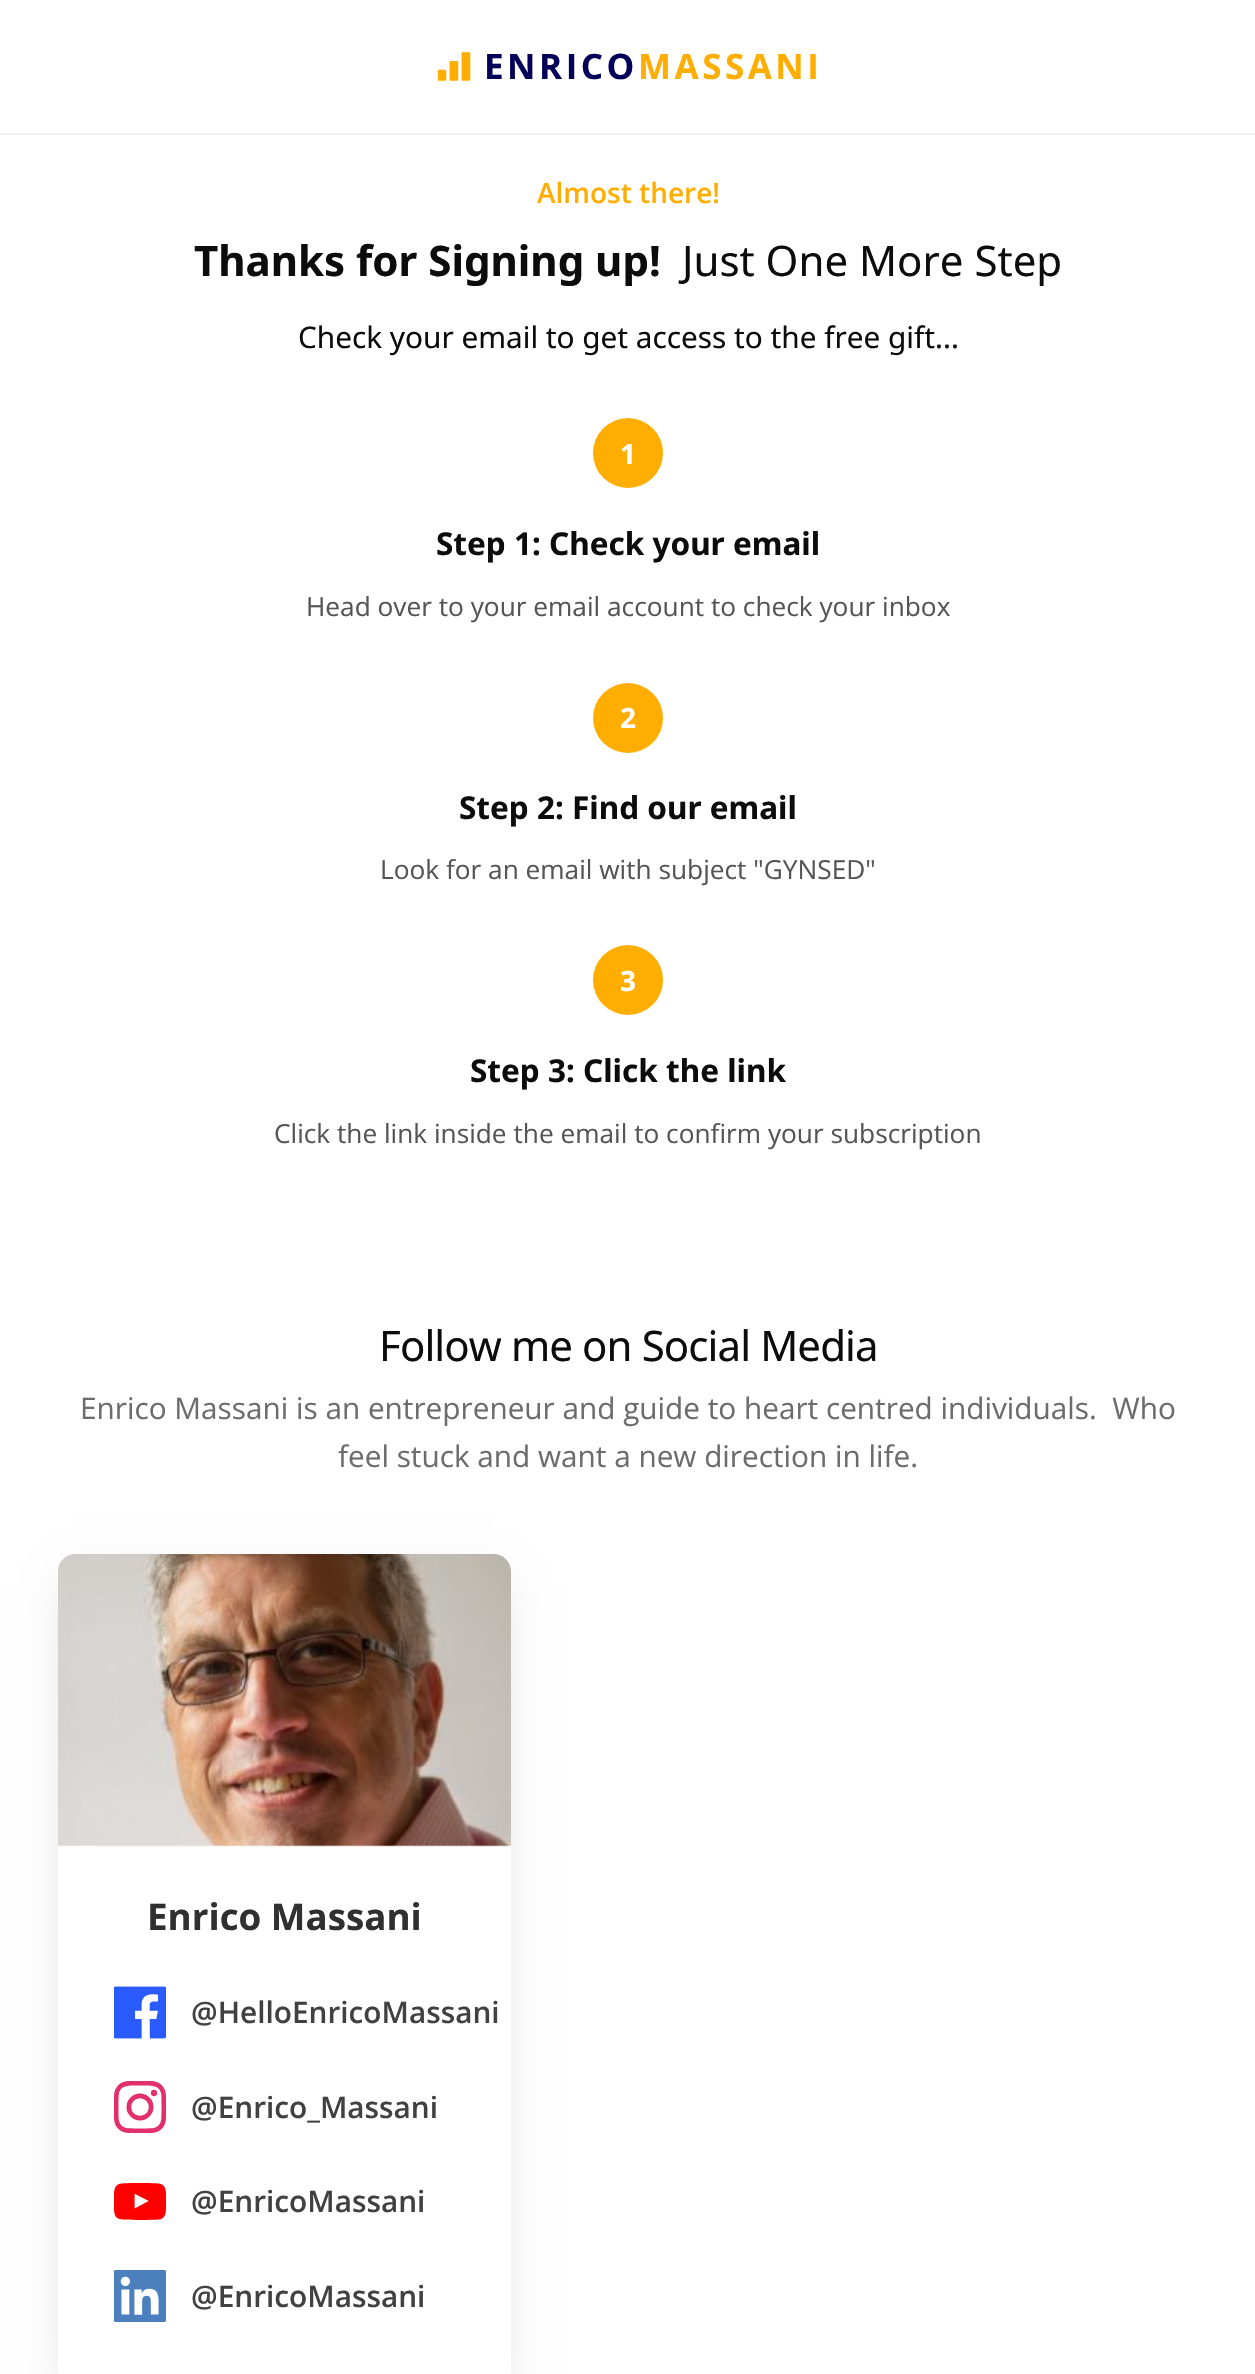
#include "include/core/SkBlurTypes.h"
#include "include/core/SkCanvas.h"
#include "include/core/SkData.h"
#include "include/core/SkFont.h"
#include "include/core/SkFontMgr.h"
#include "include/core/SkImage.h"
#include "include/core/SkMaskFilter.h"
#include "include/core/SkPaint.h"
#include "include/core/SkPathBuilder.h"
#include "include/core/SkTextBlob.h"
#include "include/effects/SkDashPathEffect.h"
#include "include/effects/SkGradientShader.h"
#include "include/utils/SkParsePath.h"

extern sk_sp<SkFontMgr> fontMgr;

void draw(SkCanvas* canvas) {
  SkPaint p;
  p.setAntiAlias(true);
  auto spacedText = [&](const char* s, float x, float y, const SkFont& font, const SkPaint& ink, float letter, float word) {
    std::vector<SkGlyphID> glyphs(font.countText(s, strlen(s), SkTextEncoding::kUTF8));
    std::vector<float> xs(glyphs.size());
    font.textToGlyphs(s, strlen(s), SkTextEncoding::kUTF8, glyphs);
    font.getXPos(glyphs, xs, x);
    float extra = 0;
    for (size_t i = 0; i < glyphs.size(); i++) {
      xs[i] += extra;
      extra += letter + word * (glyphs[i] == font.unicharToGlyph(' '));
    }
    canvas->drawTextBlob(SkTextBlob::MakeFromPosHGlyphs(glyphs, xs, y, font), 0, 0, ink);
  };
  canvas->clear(SK_ColorWHITE);
  canvas->drawImageRect(SkImages::DeferredFromEncodedData(SkData::MakeFromFileName("images/1.png")), SkRect::MakeLTRB(437, 52, 471, 81), SkSamplingOptions());
  p.setColor(SkColorSetRGB(241, 241, 241));
  canvas->drawRect(SkRect::MakeLTRB(0, 133, 1255, 135), p);
  p.setColor(SkColorSetRGB(255, 174, 0));
  canvas->drawCircle(628, 453, 35, p);
  canvas->drawCircle(628, 718, 35, p);
  canvas->drawCircle(628, 980, 35, p);
  canvas->save();
  canvas->clipPath(SkPathBuilder(SkPathFillType::kEvenOdd).moveTo(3, 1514).lineTo(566, 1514).lineTo(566, 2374).lineTo(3, 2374).close().moveTo(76, 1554).lineTo(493, 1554).cubicTo(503, 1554, 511, 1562, 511, 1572).lineTo(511, 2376).cubicTo(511, 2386, 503, 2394, 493, 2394).lineTo(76, 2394).cubicTo(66, 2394, 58, 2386, 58, 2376).lineTo(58, 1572).cubicTo(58, 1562, 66, 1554, 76, 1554).close().detach(), true);
  p.setColor(SkColorSetARGB(48, 0, 0, 0));
  p.setMaskFilter(SkMaskFilter::MakeBlur(kNormal_SkBlurStyle, 23.5f));
  canvas->drawRect(SkRect::MakeLTRB(75, 1586, 494, 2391), p);
  p.setMaskFilter(nullptr);
  canvas->restore();
  canvas->drawImageRect(SkImages::DeferredFromEncodedData(SkData::MakeFromFileName("images/2.png")), SkRect::MakeLTRB(58, 1554, 511, 1847), SkSamplingOptions());
  canvas->drawImageRect(SkImages::DeferredFromEncodedData(SkData::MakeFromFileName("images/3.png")), SkRect::MakeLTRB(114, 1986, 166, 2039), SkSamplingOptions());
  canvas->drawImageRect(SkImages::DeferredFromEncodedData(SkData::MakeFromFileName("images/4.png")), SkRect::MakeLTRB(114, 2081, 166, 2133), SkSamplingOptions());
  canvas->drawImageRect(SkImages::DeferredFromEncodedData(SkData::MakeFromFileName("images/5.png")), SkRect::MakeLTRB(114, 2183, 166, 2220), SkSamplingOptions());
  canvas->drawImageRect(SkImages::DeferredFromEncodedData(SkData::MakeFromFileName("images/6.png")), SkRect::MakeLTRB(114, 2270, 166, 2322), SkSamplingOptions());
  SkFont font1(fontMgr->matchFamilyStyle("Open Sans", SkFontStyle::Bold()), 35);
  font1.setSubpixel(true);
  p.setColor(SkColorSetRGB(2, 0, 88));
  spacedText("ENRICO", 484, 79, font1, p, 3.5f, 0);
  p.setColor(SkColorSetRGB(255, 174, 0));
  spacedText("MASSANI", 638, 79, font1, p, 3.5f, 0);
  SkFont font2(fontMgr->matchFamilyStyle("Open Sans", SkFontStyle(600, SkFontStyle::kNormal_Width, SkFontStyle::kUpright_Slant)), 28);
  font2.setSubpixel(true);
  canvas->drawString("Almost there!", 537, 203, font2, p);
  SkFont font3(fontMgr->matchFamilyStyle("Noto Sans", SkFontStyle::Bold()), 42);
  font3.setSubpixel(true);
  p.setColor(SkColorSetRGB(12, 12, 12));
  canvas->drawString("Thanks for Signing up!", 194, 276, font3, p);
  SkFont font4(fontMgr->matchFamilyStyle("Noto Sans", SkFontStyle::Normal()), 42);
  font4.setSubpixel(true);
  canvas->drawString("Just One More Step", 682, 276, font4, p);
  SkFont font5(fontMgr->matchFamilyStyle("Noto Sans", SkFontStyle::Normal()), 29.75f);
  font5.setSubpixel(true);
  canvas->drawString("Check your email to get access to the free gift...", 298, 348, font5, p);
  SkFont font6(fontMgr->matchFamilyStyle("Noto Sans", SkFontStyle::Bold()), 28);
  font6.setSubpixel(true);
  p.setColor(SK_ColorWHITE);
  canvas->drawString("1", 620, 464, font6, p);
  SkFont font7(fontMgr->matchFamilyStyle("Noto Sans", SkFontStyle::Bold()), 31.5f);
  font7.setSubpixel(true);
  p.setColor(SkColorSetRGB(12, 12, 12));
  canvas->drawString("Step 1: Check your email", 436, 555, font7, p);
  SkFont font8(fontMgr->matchFamilyStyle("Open Sans", SkFontStyle::Normal()), 26.25f);
  font8.setSubpixel(true);
  p.setColor(SkColorSetRGB(85, 85, 85));
  canvas->drawString("Head over to your email account to check your inbox", 306, 616, font8, p);
  p.setColor(SK_ColorWHITE);
  canvas->drawString("2", 620, 728, font6, p);
  p.setColor(SkColorSetRGB(12, 12, 12));
  canvas->drawString("Step 2: Find our email", 459, 819, font7, p);
  p.setColor(SkColorSetRGB(85, 85, 85));
  canvas->drawString("Look for an email with subject \"GYNSED\"", 380, 879, font8, p);
  p.setColor(SK_ColorWHITE);
  canvas->drawString("3", 620, 991, font6, p);
  p.setColor(SkColorSetRGB(12, 12, 12));
  canvas->drawString("Step 3: Click the link", 470, 1082, font7, p);
  p.setColor(SkColorSetRGB(85, 85, 85));
  canvas->drawString("Click the link inside the email to confirm your subscription", 274, 1143, font8, p);
  p.setColor(SkColorSetRGB(12, 12, 12));
  spacedText("Follow me on Social Media", 379, 1361, font4, p, -0.9f, 0);
  SkFont font9(fontMgr->matchFamilyStyle("Open Sans", SkFontStyle::Normal()), 29.75f);
  font9.setSubpixel(true);
  p.setColor(SkColorSetRGB(108, 108, 108));
  canvas->drawString("Enrico Massani is an entrepreneur and guide to heart centred individuals.  Who", 80, 1419, font9, p);
  canvas->drawString("feel stuck and want a new direction in life.", 338, 1467, font9, p);
  SkFont font10(fontMgr->matchFamilyStyle("Open Sans", SkFontStyle::Bold()), 36.75f);
  font10.setSubpixel(true);
  p.setColor(SkColorSetRGB(48, 48, 48));
  canvas->drawString("Enrico Massani", 147, 1930, font10, p);
  SkFont font11(fontMgr->matchFamilyStyle("Open Sans", SkFontStyle(600, SkFontStyle::kNormal_Width, SkFontStyle::kUpright_Slant)), 29.75f);
  font11.setSubpixel(true);
  p.setColor(SkColorSetRGB(65, 65, 65));
  canvas->drawString("@HelloEnricoMassani", 191, 2023, font11, p);
  canvas->drawString("@Enrico_Massani", 191, 2118, font11, p);
  canvas->drawString("@EnricoMassani", 191, 2212, font11, p);
  canvas->drawString("@EnricoMassani", 191, 2307, font11, p);
}
